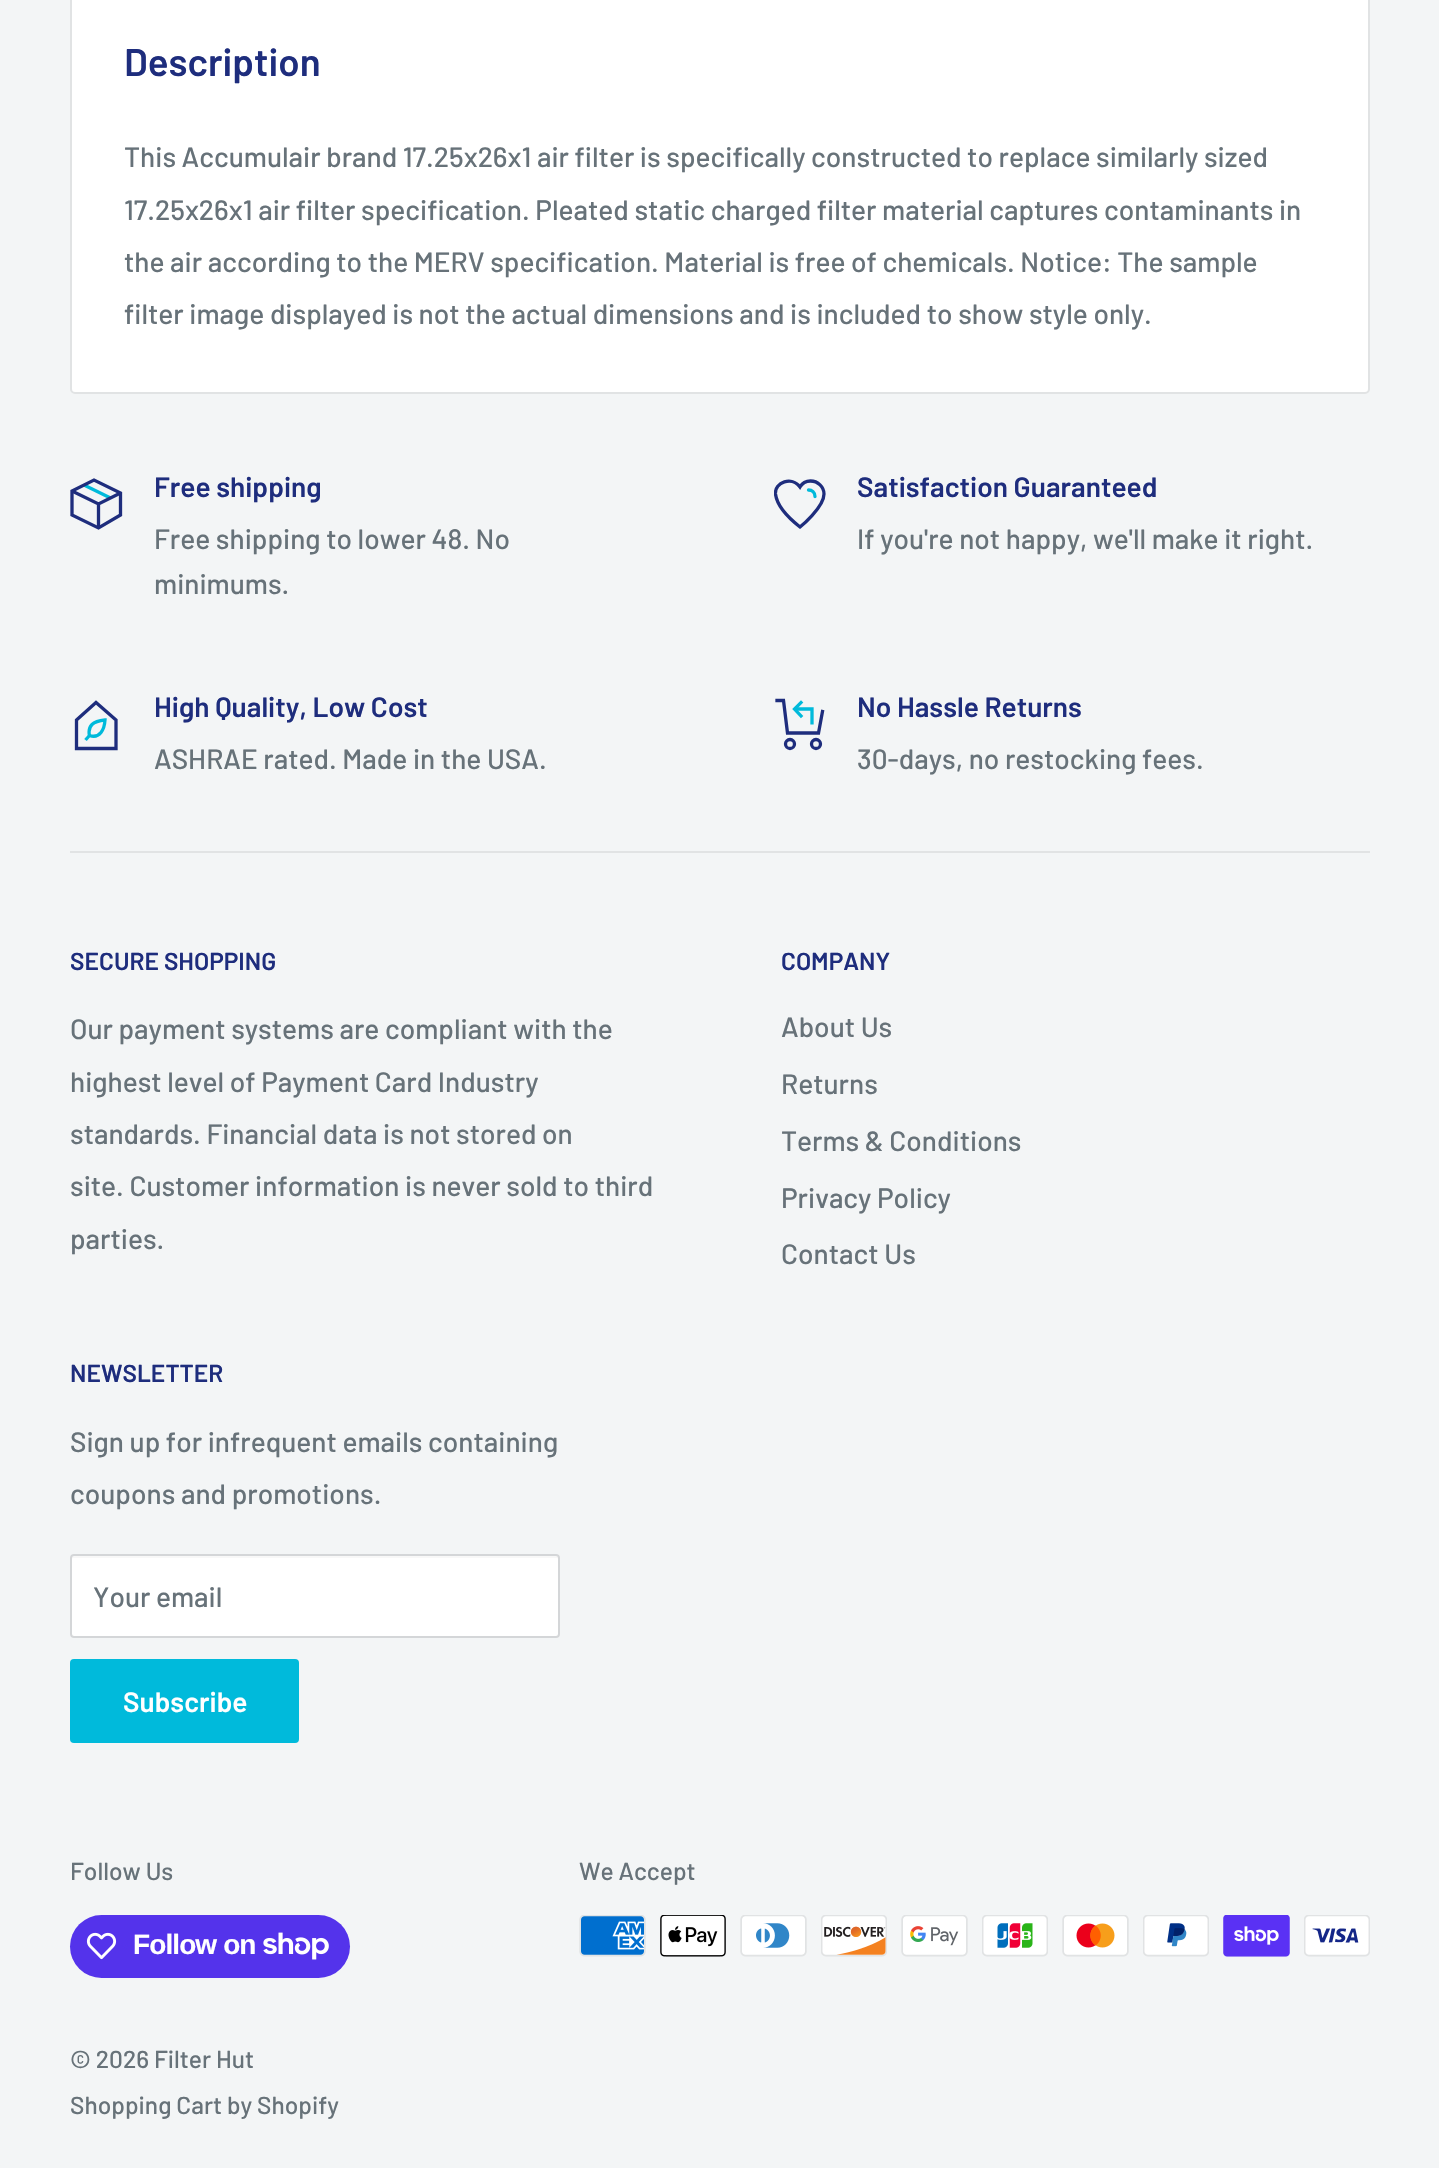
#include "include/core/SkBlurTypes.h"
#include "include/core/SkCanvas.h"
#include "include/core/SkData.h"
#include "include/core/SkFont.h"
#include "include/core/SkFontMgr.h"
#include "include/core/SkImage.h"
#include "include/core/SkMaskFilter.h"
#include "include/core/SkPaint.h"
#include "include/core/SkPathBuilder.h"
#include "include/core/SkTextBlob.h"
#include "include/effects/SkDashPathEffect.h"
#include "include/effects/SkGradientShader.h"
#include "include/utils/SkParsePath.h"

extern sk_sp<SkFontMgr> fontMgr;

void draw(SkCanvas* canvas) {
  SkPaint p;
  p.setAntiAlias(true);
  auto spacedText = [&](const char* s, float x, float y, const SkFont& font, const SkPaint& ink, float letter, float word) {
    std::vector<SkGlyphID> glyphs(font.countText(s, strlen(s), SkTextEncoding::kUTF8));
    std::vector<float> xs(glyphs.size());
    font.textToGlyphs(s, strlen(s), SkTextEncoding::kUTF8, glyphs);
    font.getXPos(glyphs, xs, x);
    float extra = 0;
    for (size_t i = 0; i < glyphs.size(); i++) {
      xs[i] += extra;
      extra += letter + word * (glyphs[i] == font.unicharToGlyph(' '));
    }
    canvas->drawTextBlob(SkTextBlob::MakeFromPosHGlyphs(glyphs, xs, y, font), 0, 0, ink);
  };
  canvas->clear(SkColorSetRGB(243, 245, 246));
  p.setColor(SK_ColorWHITE);
  canvas->drawRoundRect(SkRect::MakeLTRB(71, -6, 1369, 393), 4, 4, p);
  p.setStyle(SkPaint::kStroke_Style);
  p.setStrokeWidth(2);
  p.setColor(SkColorSetRGB(225, 227, 228));
  canvas->drawRoundRect(SkRect::MakeLTRB(71, -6, 1369, 393), 4, 4, p);
  p.setStrokeWidth(3.3f);
  p.setColor(SkColorSetRGB(0, 186, 219));
  canvas->drawPath(SkPathBuilder().moveTo(84, 485).lineTo(110.5f, 498).detach(), p);
  p.setColor(SkColorSetRGB(30, 45, 125));
  canvas->drawPath(SkPathBuilder().moveTo(120.5f, 493).lineTo(98.5f, 504).lineTo(72, 491).moveTo(98.5f, 504).lineTo(98.5f, 528).detach(), p);
  p.setStrokeCap(SkPaint::kSquare_Cap);
  canvas->drawPath(SkPathBuilder().moveTo(120.5f, 493).lineTo(120.5f, 515).lineTo(98.5f, 528).lineTo(72, 515).lineTo(72, 491).lineTo(94, 480).close().detach(), p);
  canvas->save();
  canvas->clipRect(SkRect::MakeLTRB(774, 478, 826, 530));
  canvas->drawPath(SkPathBuilder().moveTo(810.5f, 481).cubicTo(806, 481, 802, 483.5f, 800, 487).cubicTo(792, 476, 774.5f, 482, 775.5f, 494).cubicTo(777, 507, 790.5f, 519.5f, 800, 527).cubicTo(800, 527, 824, 507.5f, 824, 494).cubicTo(824, 487, 818, 481, 810.5f, 481).close().detach(), p);
  canvas->restore();
  p.setStrokeCap(SkPaint::kRound_Cap);
  p.setColor(SkColorSetRGB(0, 186, 219));
  canvas->drawPath(SkPathBuilder().moveTo(808.5f, 490).cubicTo(812, 490, 815, 492.5f, 815, 496.5f).detach(), p);
  p.setStrokeCap(SkPaint::kButt_Cap);
  canvas->drawPath(SkPathBuilder().moveTo(89.5f, 735.5f).lineTo(85.5f, 740).detach(), p);
  p.setStrokeCap(SkPaint::kSquare_Cap);
  canvas->drawPath(SkPathBuilder().moveTo(92, 724.5f).cubicTo(95.5f, 721, 105, 720, 105, 720).cubicTo(104.5f, 729, 100, 739, 89.5f, 735.5f).cubicTo(89.5f, 735.5f, 87.5f, 729, 92, 724.5f).close().detach(), p);
  p.setColor(SkColorSetRGB(30, 45, 125));
  canvas->drawPath(SkPathBuilder().moveTo(96, 702.5f).lineTo(76.5f, 720).lineTo(76.5f, 748.5f).lineTo(116, 748.5f).lineTo(116, 720).close().detach(), p);
  p.setStrokeCap(SkPaint::kButt_Cap);
  p.setColor(SkColorSetRGB(0, 186, 219));
  canvas->drawPath(SkPathBuilder().moveTo(794.5f, 709).lineTo(812, 709).lineTo(812, 724.5f).detach(), p);
  p.setStrokeCap(SkPaint::kSquare_Cap);
  canvas->drawPath(SkPathBuilder().moveTo(801, 716).lineTo(794.5f, 709).lineTo(801, 702.5f).detach(), p);
  p.setColor(SkColorSetRGB(30, 45, 125));
  canvas->drawPath(SkPathBuilder().moveTo(822.5f, 711.5f).lineTo(818.5f, 733).lineTo(787.5f, 733).lineTo(783.5f, 700.5f).lineTo(777, 700.5f).detach(), p);
  p.setStrokeCap(SkPaint::kButt_Cap);
  canvas->drawCircle(790, 744, 4.5f, p);
  canvas->drawCircle(816, 744, 4.5f, p);
  p.setStyle(SkPaint::kFill_Style);
  p.setColor(SkColorSetRGB(225, 227, 228));
  canvas->drawRect(SkRect::MakeLTRB(70, 851, 1370, 853), p);
  p.setColor(SK_ColorWHITE);
  canvas->drawRoundRect(SkRect::MakeLTRB(70, 1554, 560, 1638), 4, 4, p);
  p.setColor(SkColorSetRGB(248, 248, 248));
  canvas->drawPath(SkPathBuilder().moveTo(74, 1558).lineTo(556, 1558).cubicTo(557, 1558, 558, 1558, 558, 1559).cubicTo(558, 1558, 558, 1556, 556, 1556).lineTo(74, 1556).lineTo(72, 1557).lineTo(72, 1559).cubicTo(72, 1558, 73, 1558, 74, 1558).close().detach(), p);
  p.setStyle(SkPaint::kStroke_Style);
  p.setStrokeWidth(2);
  p.setColor(SkColorSetRGB(212, 214, 216));
  canvas->drawRoundRect(SkRect::MakeLTRB(71, 1555, 559, 1637), 3, 3, p);
  p.setStyle(SkPaint::kFill_Style);
  p.setColor(SkColorSetRGB(0, 186, 219));
  canvas->drawRoundRect(SkRect::MakeLTRB(70, 1659, 299, 1743), 4, 4, p);
  p.setColor(SkColorSetRGB(84, 51, 235));
  canvas->drawRoundRect(SkRect::MakeLTRB(70, 1915, 350, 1978), 31.5f, 31.5f, p);
  canvas->drawImageRect(SkImages::DeferredFromEncodedData(SkData::MakeFromFileName("images/1.png")), SkRect::MakeLTRB(86, 1932, 117, 1960), SkSamplingOptions());
  canvas->drawImageRect(SkImages::DeferredFromEncodedData(SkData::MakeFromFileName("images/2.png")), SkRect::MakeLTRB(263, 1932, 329, 1960), SkSamplingOptions());
  canvas->drawImageRect(SkImages::DeferredFromEncodedData(SkData::MakeFromFileName("images/3.png")), SkRect::MakeLTRB(579, 1915, 646, 1957), SkSamplingOptions());
  canvas->drawImageRect(SkImages::DeferredFromEncodedData(SkData::MakeFromFileName("images/4.png")), SkRect::MakeLTRB(660, 1915, 726, 1957), SkSamplingOptions());
  canvas->drawImageRect(SkImages::DeferredFromEncodedData(SkData::MakeFromFileName("images/5.png")), SkRect::MakeLTRB(740, 1915, 807, 1957), SkSamplingOptions());
  canvas->drawImageRect(SkImages::DeferredFromEncodedData(SkData::MakeFromFileName("images/6.png")), SkRect::MakeLTRB(821, 1915, 887, 1957), SkSamplingOptions());
  canvas->drawImageRect(SkImages::DeferredFromEncodedData(SkData::MakeFromFileName("images/7.png")), SkRect::MakeLTRB(901, 1915, 968, 1957), SkSamplingOptions());
  canvas->drawImageRect(SkImages::DeferredFromEncodedData(SkData::MakeFromFileName("images/8.png")), SkRect::MakeLTRB(982, 1915, 1048, 1957), SkSamplingOptions());
  canvas->drawImageRect(SkImages::DeferredFromEncodedData(SkData::MakeFromFileName("images/9.png")), SkRect::MakeLTRB(1062, 1915, 1129, 1957), SkSamplingOptions());
  canvas->drawImageRect(SkImages::DeferredFromEncodedData(SkData::MakeFromFileName("images/10.png")), SkRect::MakeLTRB(1143, 1915, 1209, 1957), SkSamplingOptions());
  canvas->drawImageRect(SkImages::DeferredFromEncodedData(SkData::MakeFromFileName("images/11.png")), SkRect::MakeLTRB(1223, 1915, 1290, 1957), SkSamplingOptions());
  canvas->drawImageRect(SkImages::DeferredFromEncodedData(SkData::MakeFromFileName("images/12.png")), SkRect::MakeLTRB(1304, 1915, 1370, 1957), SkSamplingOptions());
  SkFont font1(fontMgr->matchFamilyStyle("Barlow", SkFontStyle(600, SkFontStyle::kNormal_Width, SkFontStyle::kUpright_Slant)), 38.5f);
  font1.setSubpixel(true);
  p.setColor(SkColorSetRGB(30, 45, 125));
  canvas->drawString("Description", 124, 76, font1, p);
  SkFont font2(fontMgr->matchFamilyStyle("Barlow", SkFontStyle(500, SkFontStyle::kNormal_Width, SkFontStyle::kUpright_Slant)), 28);
  font2.setSubpixel(true);
  p.setColor(SkColorSetRGB(103, 114, 121));
  canvas->drawString("This Accumulair brand 17.25x26x1 air filter is specifically constructed to replace similarly sized", 124, 167, font2, p);
  canvas->drawString("17.25x26x1 air filter specification. Pleated static charged filter material captures contaminants in", 124, 220, font2, p);
  canvas->drawString("the air according to the MERV specification. Material is free of chemicals. Notice: The sample", 124, 272, font2, p);
  canvas->drawString("filter image displayed is not the actual dimensions and is included to show style only.", 124, 324, font2, p);
  SkFont font3(fontMgr->matchFamilyStyle("Barlow", SkFontStyle(600, SkFontStyle::kNormal_Width, SkFontStyle::kUpright_Slant)), 28);
  font3.setSubpixel(true);
  p.setColor(SkColorSetRGB(30, 45, 125));
  canvas->drawString("Free shipping", 154, 497, font3, p);
  p.setColor(SkColorSetRGB(103, 114, 121));
  canvas->drawString("Free shipping to lower 48. No", 154, 549, font2, p);
  canvas->drawString("minimums.", 154, 594, font2, p);
  p.setColor(SkColorSetRGB(30, 45, 125));
  canvas->drawString("Satisfaction Guaranteed", 857, 497, font3, p);
  p.setColor(SkColorSetRGB(103, 114, 121));
  canvas->drawString("If you're not happy, we'll make it right.", 857, 549, font2, p);
  p.setColor(SkColorSetRGB(30, 45, 125));
  canvas->drawString("High Quality, Low Cost", 154, 717, font3, p);
  p.setColor(SkColorSetRGB(103, 114, 121));
  canvas->drawString("ASHRAE rated. Made in the USA.", 154, 769, font2, p);
  p.setColor(SkColorSetRGB(30, 45, 125));
  canvas->drawString("No Hassle Returns", 857, 717, font3, p);
  p.setColor(SkColorSetRGB(103, 114, 121));
  canvas->drawString("30-days, no restocking fees.", 857, 769, font2, p);
  SkFont font4(fontMgr->matchFamilyStyle("Barlow", SkFontStyle(600, SkFontStyle::kNormal_Width, SkFontStyle::kUpright_Slant)), 24.5f);
  font4.setSubpixel(true);
  p.setColor(SkColorSetRGB(30, 45, 125));
  canvas->drawString("SECURE SHOPPING", 70, 970, font4, p);
  p.setColor(SkColorSetRGB(103, 114, 121));
  canvas->drawString("Our payment systems are compliant with the", 70, 1039, font2, p);
  canvas->drawString("highest level of Payment Card Industry", 70, 1092, font2, p);
  canvas->drawString("standards. Financial data is not stored on", 70, 1144, font2, p);
  canvas->drawString("site. Customer information is never sold to third", 70, 1196, font2, p);
  canvas->drawString("parties.", 70, 1249, font2, p);
  p.setColor(SkColorSetRGB(30, 45, 125));
  canvas->drawString("COMPANY", 781, 970, font4, p);
  p.setColor(SkColorSetRGB(103, 114, 121));
  canvas->drawString("About Us", 781, 1037, font2, p);
  canvas->drawString("Returns", 781, 1094, font2, p);
  canvas->drawString("Terms & Conditions", 781, 1151, font2, p);
  canvas->drawString("Privacy Policy", 781, 1208, font2, p);
  canvas->drawString("Contact Us", 781, 1264, font2, p);
  p.setColor(SkColorSetRGB(30, 45, 125));
  canvas->drawString("NEWSLETTER", 70, 1382, font4, p);
  p.setColor(SkColorSetRGB(103, 114, 121));
  canvas->drawString("Sign up for infrequent emails containing", 70, 1452, font2, p);
  canvas->drawString("coupons and promotions.", 70, 1504, font2, p);
  canvas->drawString("Your email", 93, 1607, font2, p);
  p.setColor(SK_ColorWHITE);
  canvas->drawString("Subscribe", 123, 1712, font3, p);
  SkFont font5(fontMgr->matchFamilyStyle("Barlow", SkFontStyle(500, SkFontStyle::kNormal_Width, SkFontStyle::kUpright_Slant)), 24.5f);
  font5.setSubpixel(true);
  p.setColor(SkColorSetRGB(103, 114, 121));
  canvas->drawString("Follow Us", 70, 1880, font5, p);
  SkFont font6(fontMgr->matchFamilyStyle("Liberation Sans", SkFontStyle::Bold()), 28);
  font6.setSubpixel(true);
  p.setColor(SK_ColorWHITE);
  spacedText("Follow on", 133, 1954, font6, p, -0.9f, 0);
  p.setColor(SkColorSetRGB(103, 114, 121));
  canvas->drawString("We Accept", 579, 1880, font5, p);
  canvas->drawString("© 2026 Filter Hut", 70, 2068, font5, p);
  canvas->drawString("Shopping Cart by Shopify", 70, 2114, font5, p);
}
